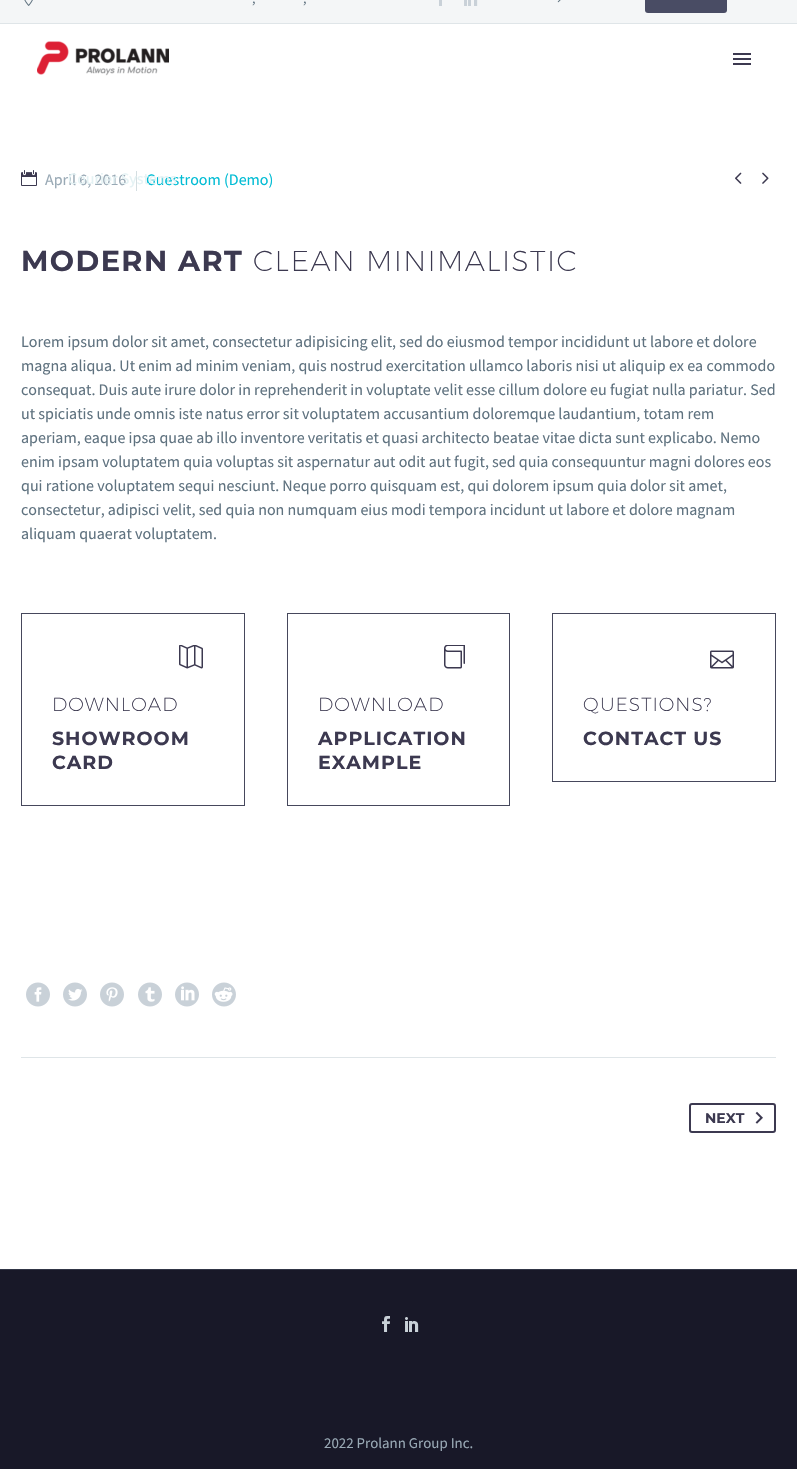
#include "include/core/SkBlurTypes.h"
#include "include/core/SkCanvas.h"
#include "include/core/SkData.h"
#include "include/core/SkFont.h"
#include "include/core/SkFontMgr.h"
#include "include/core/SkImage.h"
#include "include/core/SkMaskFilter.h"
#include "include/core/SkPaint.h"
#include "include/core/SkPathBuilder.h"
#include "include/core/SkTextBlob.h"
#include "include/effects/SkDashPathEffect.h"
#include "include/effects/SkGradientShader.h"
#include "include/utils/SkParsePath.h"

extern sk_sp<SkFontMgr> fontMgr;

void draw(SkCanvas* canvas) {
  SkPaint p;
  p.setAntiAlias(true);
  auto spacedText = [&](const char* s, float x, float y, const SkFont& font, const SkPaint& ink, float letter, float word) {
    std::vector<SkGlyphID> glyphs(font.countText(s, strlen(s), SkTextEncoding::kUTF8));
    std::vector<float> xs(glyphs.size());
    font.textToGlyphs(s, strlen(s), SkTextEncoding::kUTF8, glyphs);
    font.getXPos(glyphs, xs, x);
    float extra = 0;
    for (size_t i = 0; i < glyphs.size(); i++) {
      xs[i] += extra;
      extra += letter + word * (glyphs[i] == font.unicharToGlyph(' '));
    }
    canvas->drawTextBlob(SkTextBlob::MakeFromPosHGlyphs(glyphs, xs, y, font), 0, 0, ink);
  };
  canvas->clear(SK_ColorWHITE);
  p.setColor(SkColorSetRGB(244, 246, 247));
  canvas->drawRect(SkRect::MakeLTRB(0, 0, 797, 23), p);
  p.setColor(SkColorSetRGB(223, 229, 232));
  canvas->drawRect(SkRect::MakeLTRB(0, 23, 797, 24), p);
  canvas->drawImageRect(SkImages::DeferredFromEncodedData(SkData::MakeFromFileName("images/1.png")), SkRect::MakeLTRB(24, 0, 33, 6), SkSamplingOptions());
  p.setColor(SkColorSetRGB(201, 209, 216));
  canvas->drawRect(SkRect::MakeLTRB(439, 0, 442, 6), p);
  canvas->drawImageRect(SkImages::DeferredFromEncodedData(SkData::MakeFromFileName("images/2.png")), SkRect::MakeLTRB(464, 0, 478, 6), SkSamplingOptions());
  canvas->drawImageRect(SkImages::DeferredFromEncodedData(SkData::MakeFromFileName("images/3.png")), SkRect::MakeLTRB(557, 0, 561, 3), SkSamplingOptions());
  p.setColor(SkColorSetRGB(73, 76, 100));
  canvas->drawRoundRect(SkRect::MakeLTRB(645, -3, 727, 13), 3, 3, p);
  canvas->drawImageRect(SkImages::DeferredFromEncodedData(SkData::MakeFromFileName("images/4.png")), SkRect::MakeLTRB(37, 41, 169, 76), SkSamplingOptions());
  p.setColor(SkColorSetRGB(60, 57, 80));
  canvas->drawRect(SkRect::MakeLTRB(733, 53, 751, 55), p);
  canvas->drawRect(SkRect::MakeLTRB(733, 58, 751, 60), p);
  canvas->drawRect(SkRect::MakeLTRB(733, 63, 751, 65), p);
  canvas->drawImageRect(SkImages::DeferredFromEncodedData(SkData::MakeFromFileName("images/5.png")), SkRect::MakeLTRB(21, 170, 37, 186), SkSamplingOptions());
  p.setColor(SkColorSetRGB(212, 222, 225));
  canvas->drawRect(SkRect::MakeLTRB(136, 171, 137, 191), p);
  canvas->drawImageRect(SkImages::DeferredFromEncodedData(SkData::MakeFromFileName("images/6.png")), SkRect::MakeLTRB(735, 172, 742, 184), SkSamplingOptions());
  canvas->drawImageRect(SkImages::DeferredFromEncodedData(SkData::MakeFromFileName("images/7.png")), SkRect::MakeLTRB(762, 172, 769, 184), SkSamplingOptions());
  p.setStyle(SkPaint::kStroke_Style);
  p.setStrokeWidth(1);
  p.setColor(SkColorSetRGB(70, 72, 92));
  canvas->drawRect(SkRect::MakeLTRB(21.5f, 613.5f, 244.5f, 805.5f), p);
  canvas->drawImageRect(SkImages::DeferredFromEncodedData(SkData::MakeFromFileName("images/8.png")), SkRect::MakeLTRB(179, 645, 191, 669), SkSamplingOptions());
  canvas->drawImageRect(SkImages::DeferredFromEncodedData(SkData::MakeFromFileName("images/9.png")), SkRect::MakeLTRB(191, 645, 203, 669), SkSamplingOptions());
  canvas->drawRect(SkRect::MakeLTRB(287.5f, 613.5f, 509.5f, 805.5f), p);
  canvas->drawImageRect(SkImages::DeferredFromEncodedData(SkData::MakeFromFileName("images/10.png")), SkRect::MakeLTRB(444, 645, 456, 669), SkSamplingOptions());
  canvas->drawImageRect(SkImages::DeferredFromEncodedData(SkData::MakeFromFileName("images/11.png")), SkRect::MakeLTRB(456, 645, 465, 669), SkSamplingOptions());
  canvas->drawRect(SkRect::MakeLTRB(552.5f, 613.5f, 775.5f, 781.5f), p);
  canvas->drawImageRect(SkImages::DeferredFromEncodedData(SkData::MakeFromFileName("images/12.png")), SkRect::MakeLTRB(710, 650, 722, 669), SkSamplingOptions());
  canvas->drawImageRect(SkImages::DeferredFromEncodedData(SkData::MakeFromFileName("images/13.png")), SkRect::MakeLTRB(722, 650, 734, 669), SkSamplingOptions());
  canvas->drawImageRect(SkImages::DeferredFromEncodedData(SkData::MakeFromFileName("images/14.png")), SkRect::MakeLTRB(26, 982, 50, 1007), SkSamplingOptions());
  canvas->drawImageRect(SkImages::DeferredFromEncodedData(SkData::MakeFromFileName("images/15.png")), SkRect::MakeLTRB(63, 982, 87, 1007), SkSamplingOptions());
  canvas->drawImageRect(SkImages::DeferredFromEncodedData(SkData::MakeFromFileName("images/16.png")), SkRect::MakeLTRB(100, 982, 124, 1007), SkSamplingOptions());
  canvas->drawImageRect(SkImages::DeferredFromEncodedData(SkData::MakeFromFileName("images/17.png")), SkRect::MakeLTRB(138, 982, 162, 1007), SkSamplingOptions());
  canvas->drawImageRect(SkImages::DeferredFromEncodedData(SkData::MakeFromFileName("images/18.png")), SkRect::MakeLTRB(175, 982, 199, 1007), SkSamplingOptions());
  canvas->drawImageRect(SkImages::DeferredFromEncodedData(SkData::MakeFromFileName("images/19.png")), SkRect::MakeLTRB(212, 982, 236, 1007), SkSamplingOptions());
  p.setStyle(SkPaint::kFill_Style);
  p.setColor(SkColorSetRGB(223, 229, 232));
  canvas->drawRect(SkRect::MakeLTRB(21, 1057, 776, 1058), p);
  p.setStyle(SkPaint::kStroke_Style);
  p.setStrokeWidth(2);
  p.setColor(SkColorSetRGB(60, 57, 80));
  canvas->drawRoundRect(SkRect::MakeLTRB(690, 1104, 775, 1132), 2, 2, p);
  canvas->drawImageRect(SkImages::DeferredFromEncodedData(SkData::MakeFromFileName("images/20.png")), SkRect::MakeLTRB(755, 1111, 763, 1124), SkSamplingOptions());
  p.setStyle(SkPaint::kFill_Style);
  p.setColor(SkColorSetRGB(24, 24, 40));
  canvas->drawRect(SkRect::MakeLTRB(0, 1270, 797, 1469), p);
  p.setColor(SkColorSetRGB(49, 54, 70));
  canvas->drawRect(SkRect::MakeLTRB(0, 1269, 797, 1270), p);
  canvas->drawImageRect(SkImages::DeferredFromEncodedData(SkData::MakeFromFileName("images/21.png")), SkRect::MakeLTRB(382, 1316, 390, 1332), SkSamplingOptions());
  canvas->drawImageRect(SkImages::DeferredFromEncodedData(SkData::MakeFromFileName("images/22.png")), SkRect::MakeLTRB(405, 1317, 419, 1332), SkSamplingOptions());
  SkFont font1(fontMgr->matchFamilyStyle("Source Sans Pro", SkFontStyle::Normal()), 14);
  font1.setSubpixel(true);
  p.setColor(SkColorSetRGB(95, 114, 127));
  canvas->drawString(",", 252, 3, font1, p);
  canvas->drawString(",", 303, 3, font1, p);
  SkFont font2(fontMgr->matchFamilyStyle("Source Sans Pro", SkFontStyle::Normal()), 16);
  font2.setSubpixel(true);
  p.setColor(SkColorSetRGB(153, 169, 181));
  canvas->drawString("April 6, 2016", 45, 185, font2, p);
  p.setColor(SkColorSetRGB(0, 188, 212));
  canvas->drawString("Guestroom (Demo)", 146, 185, font2, p);
  p.setColor(SkColorSetRGB(228, 242, 244));
  canvas->drawString("Courier Systems", 68, 184, font2, p);
  SkFont font3(fontMgr->matchFamilyStyle("Montserrat", SkFontStyle::Bold()), 28.75f);
  font3.setSubpixel(true);
  p.setColor(SkColorSetRGB(60, 57, 80));
  spacedText("MODERN ART", 21, 271, font3, p, 1.4f, 0);
  SkFont font4(fontMgr->matchFamilyStyle("Montserrat", SkFontStyle(200, SkFontStyle::kNormal_Width, SkFontStyle::kUpright_Slant)), 28.75f);
  font4.setSubpixel(true);
  spacedText("CLEAN MINIMALISTIC", 253, 271, font4, p, 1.4f, 0);
  p.setColor(SkColorSetRGB(95, 114, 127));
  canvas->drawString("Lorem ipsum dolor sit amet, consectetur adipisicing elit, sed do eiusmod tempor incididunt ut labore et dolore", 21, 347, font2, p);
  canvas->drawString("magna aliqua. Ut enim ad minim veniam, quis nostrud exercitation ullamco laboris nisi ut aliquip ex ea commodo", 21, 371, font2, p);
  canvas->drawString("consequat. Duis aute irure dolor in reprehenderit in voluptate velit esse cillum dolore eu fugiat nulla pariatur. Sed", 21, 395, font2, p);
  canvas->drawString("ut spiciatis unde omnis iste natus error sit voluptatem accusantium doloremque laudantium, totam rem", 21, 419, font2, p);
  canvas->drawString("aperiam, eaque ipsa quae ab illo inventore veritatis et quasi architecto beatae vitae dicta sunt explicabo. Nemo", 21, 443, font2, p);
  canvas->drawString("enim ipsam voluptatem quia voluptas sit aspernatur aut odit aut fugit, sed quia consequuntur magni dolores eos", 21, 467, font2, p);
  canvas->drawString("qui ratione voluptatem sequi nesciunt. Neque porro quisquam est, qui dolorem ipsum quia dolor sit amet,", 21, 491, font2, p);
  canvas->drawString("consectetur, adipisci velit, sed quia non numquam eius modi tempora incidunt ut labore et dolore magnam", 21, 515, font2, p);
  canvas->drawString("aliquam quaerat voluptatem.", 21, 539, font2, p);
  SkFont font5(fontMgr->matchFamilyStyle("Montserrat", SkFontStyle(200, SkFontStyle::kNormal_Width, SkFontStyle::kUpright_Slant)), 19);
  font5.setSubpixel(true);
  p.setColor(SkColorSetRGB(60, 57, 80));
  spacedText("DOWNLOAD", 52, 711, font5, p, 1, 0);
  SkFont font6(fontMgr->matchFamilyStyle("Montserrat", SkFontStyle::Bold()), 19);
  font6.setSubpixel(true);
  spacedText("SHOWROOM", 52, 745, font6, p, 1, 0);
  spacedText("CARD", 52, 769, font6, p, 1, 0);
  spacedText("DOWNLOAD", 318, 711, font5, p, 1, 0);
  spacedText("APPLICATION", 318, 745, font6, p, 1, 0);
  spacedText("EXAMPLE", 318, 769, font6, p, 1, 0);
  spacedText("QUESTIONS?", 583, 711, font5, p, 1, 0);
  spacedText("CONTACT US", 583, 745, font6, p, 1, 0);
  SkFont font7(fontMgr->matchFamilyStyle("Montserrat", SkFontStyle::Bold()), 14);
  font7.setSubpixel(true);
  canvas->drawString("NEXT", 705, 1123, font7, p);
  SkFont font8(fontMgr->matchFamilyStyle("Source Sans Pro", SkFontStyle::Normal()), 14.9f);
  font8.setSubpixel(true);
  p.setColor(SkColorSetRGB(153, 169, 181));
  canvas->drawString("2022 Prolann Group Inc.", 324, 1448, font8, p);
}
